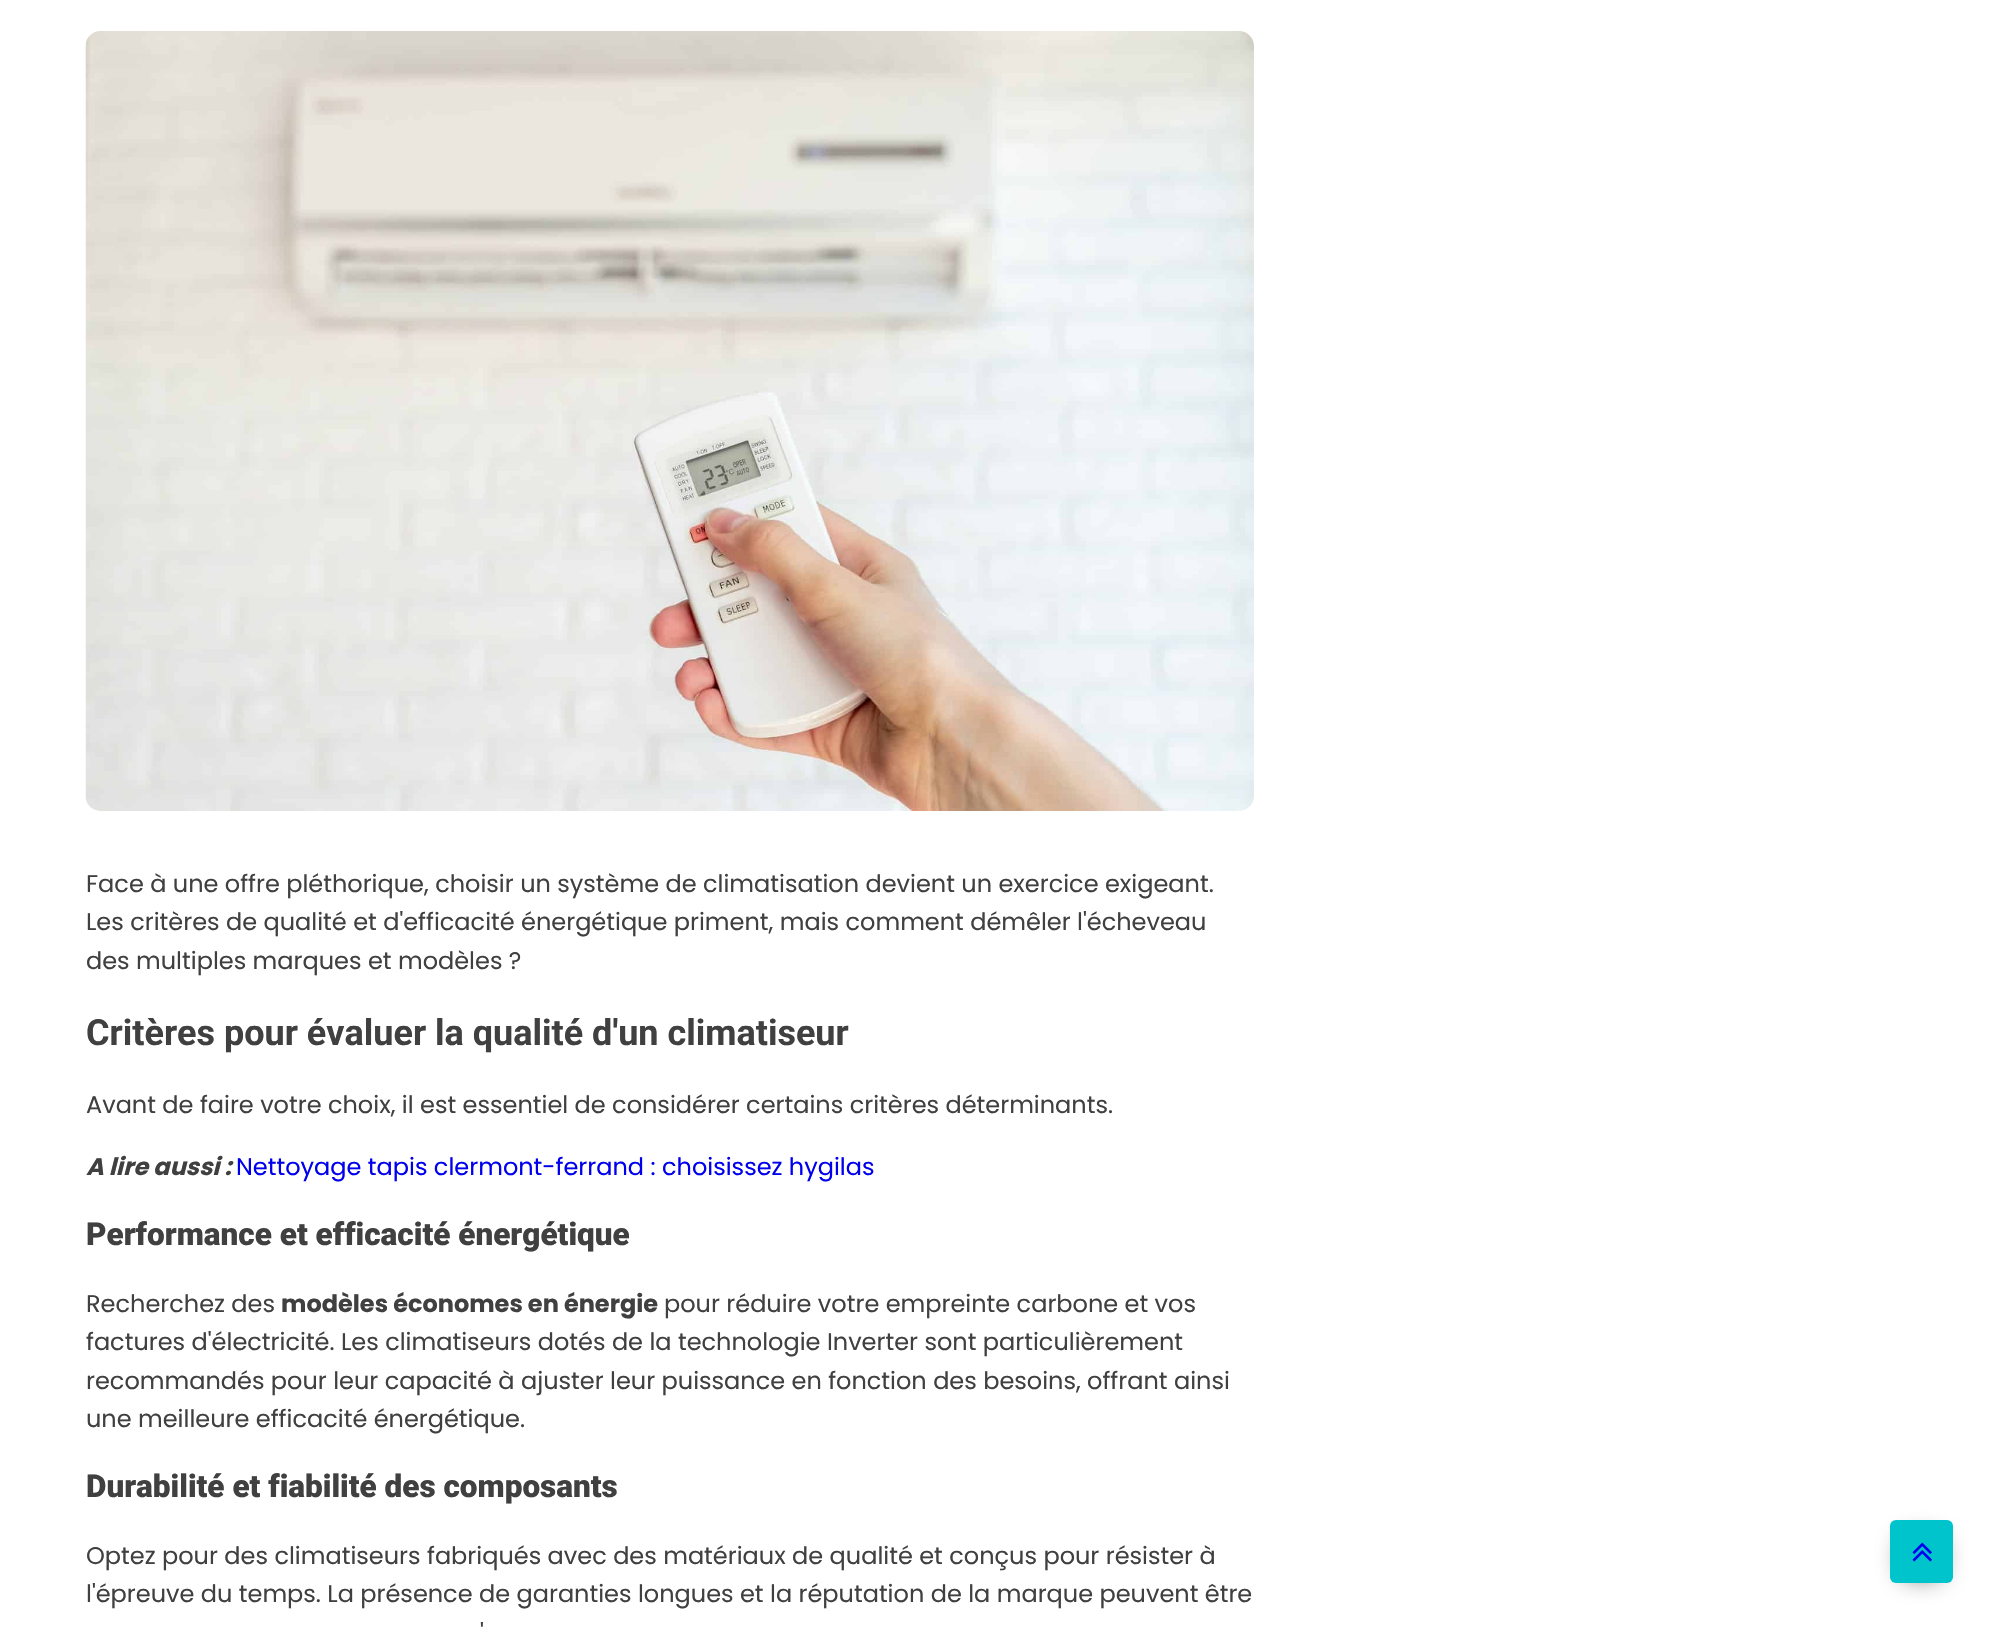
#include "include/core/SkBlurTypes.h"
#include "include/core/SkCanvas.h"
#include "include/core/SkData.h"
#include "include/core/SkFont.h"
#include "include/core/SkFontMgr.h"
#include "include/core/SkImage.h"
#include "include/core/SkMaskFilter.h"
#include "include/core/SkPaint.h"
#include "include/core/SkPathBuilder.h"
#include "include/core/SkTextBlob.h"
#include "include/effects/SkDashPathEffect.h"
#include "include/effects/SkGradientShader.h"
#include "include/utils/SkParsePath.h"

extern sk_sp<SkFontMgr> fontMgr;

void draw(SkCanvas* canvas) {
  SkPaint p;
  p.setAntiAlias(true);
  canvas->clear(SK_ColorWHITE);
  canvas->drawImageRect(SkImages::DeferredFromEncodedData(SkData::MakeFromFileName("images/1.png")), SkRect::MakeLTRB(85, 31, 1254, 811), SkSamplingOptions());
  p.setColor(SkColorSetRGB(30, 30, 30));
  p.setMaskFilter(SkMaskFilter::MakeBlur(kNormal_SkBlurStyle, 13));
  canvas->drawRect(SkRect::MakeLTRB(1905, 1541, 1938, 1574), p);
  p.setMaskFilter(nullptr);
  p.setColor(SkColorSetRGB(0, 196, 204));
  canvas->drawRoundRect(SkRect::MakeLTRB(1890, 1520, 1953, 1583), 6, 6, p);
  canvas->drawImageRect(SkImages::DeferredFromEncodedData(SkData::MakeFromFileName("images/2.png")), SkRect::MakeLTRB(1912, 1542, 1932, 1562), SkSamplingOptions());
  SkFont font1(fontMgr->matchFamilyStyle("Poppins", SkFontStyle::Normal()), 24);
  font1.setSubpixel(true);
  p.setColor(SkColorSetRGB(64, 64, 64));
  canvas->drawString("Face à une offre pléthorique, choisir un système de climatisation devient un exercice exigeant.", 86, 892, font1, p);
  canvas->drawString("Les critères de qualité et d'efficacité énergétique priment, mais comment démêler l'écheveau", 86, 930, font1, p);
  canvas->drawString("des multiples marques et modèles ?", 86, 969, font1, p);
  SkFont font2(fontMgr->matchFamilyStyle("Roboto", SkFontStyle::Bold()), 36);
  font2.setSubpixel(true);
  canvas->drawString("Critères pour évaluer la qualité d'un climatiseur", 86, 1045, font2, p);
  canvas->drawString("Avant de faire votre choix, il est essentiel de considérer certains critères déterminants.", 86, 1113, font1, p);
  SkFont font3(fontMgr->matchFamilyStyle("Poppins", SkFontStyle::BoldItalic()), 24);
  font3.setSubpixel(true);
  canvas->drawString("A lire aussi :", 86, 1175, font3, p);
  p.setColor(SkColorSetRGB(0, 0, 238));
  canvas->drawString("Nettoyage tapis clermont-ferrand : choisissez hygilas", 236, 1175, font1, p);
  SkFont font4(fontMgr->matchFamilyStyle("Roboto", SkFontStyle(900, SkFontStyle::kNormal_Width, SkFontStyle::kUpright_Slant)), 31.5f);
  font4.setSubpixel(true);
  p.setColor(SkColorSetRGB(64, 64, 64));
  canvas->drawString("Performance et efficacité énergétique", 86, 1245, font4, p);
  canvas->drawString("Recherchez des", 86, 1312, font1, p);
  SkFont font5(fontMgr->matchFamilyStyle("Poppins", SkFontStyle::Bold()), 24);
  font5.setSubpixel(true);
  canvas->drawString("modèles économes en énergie", 281, 1312, font5, p);
  canvas->drawString("pour réduire votre empreinte carbone et vos", 664, 1312, font1, p);
  canvas->drawString("factures d'électricité. Les climatiseurs dotés de la technologie Inverter sont particulièrement", 86, 1350, font1, p);
  canvas->drawString("recommandés pour leur capacité à ajuster leur puissance en fonction des besoins, offrant ainsi", 86, 1389, font1, p);
  canvas->drawString("une meilleure efficacité énergétique.", 86, 1427, font1, p);
  canvas->drawString("Durabilité et fiabilité des composants", 86, 1497, font4, p);
  canvas->drawString("Optez pour des climatiseurs fabriqués avec des matériaux de qualité et conçus pour résister à", 86, 1564, font1, p);
  canvas->drawString("l'épreuve du temps. La présence de garanties longues et la réputation de la marque peuvent être", 86, 1602, font1, p);
  canvas->drawString("'", 480, 1641, font1, p);
}
